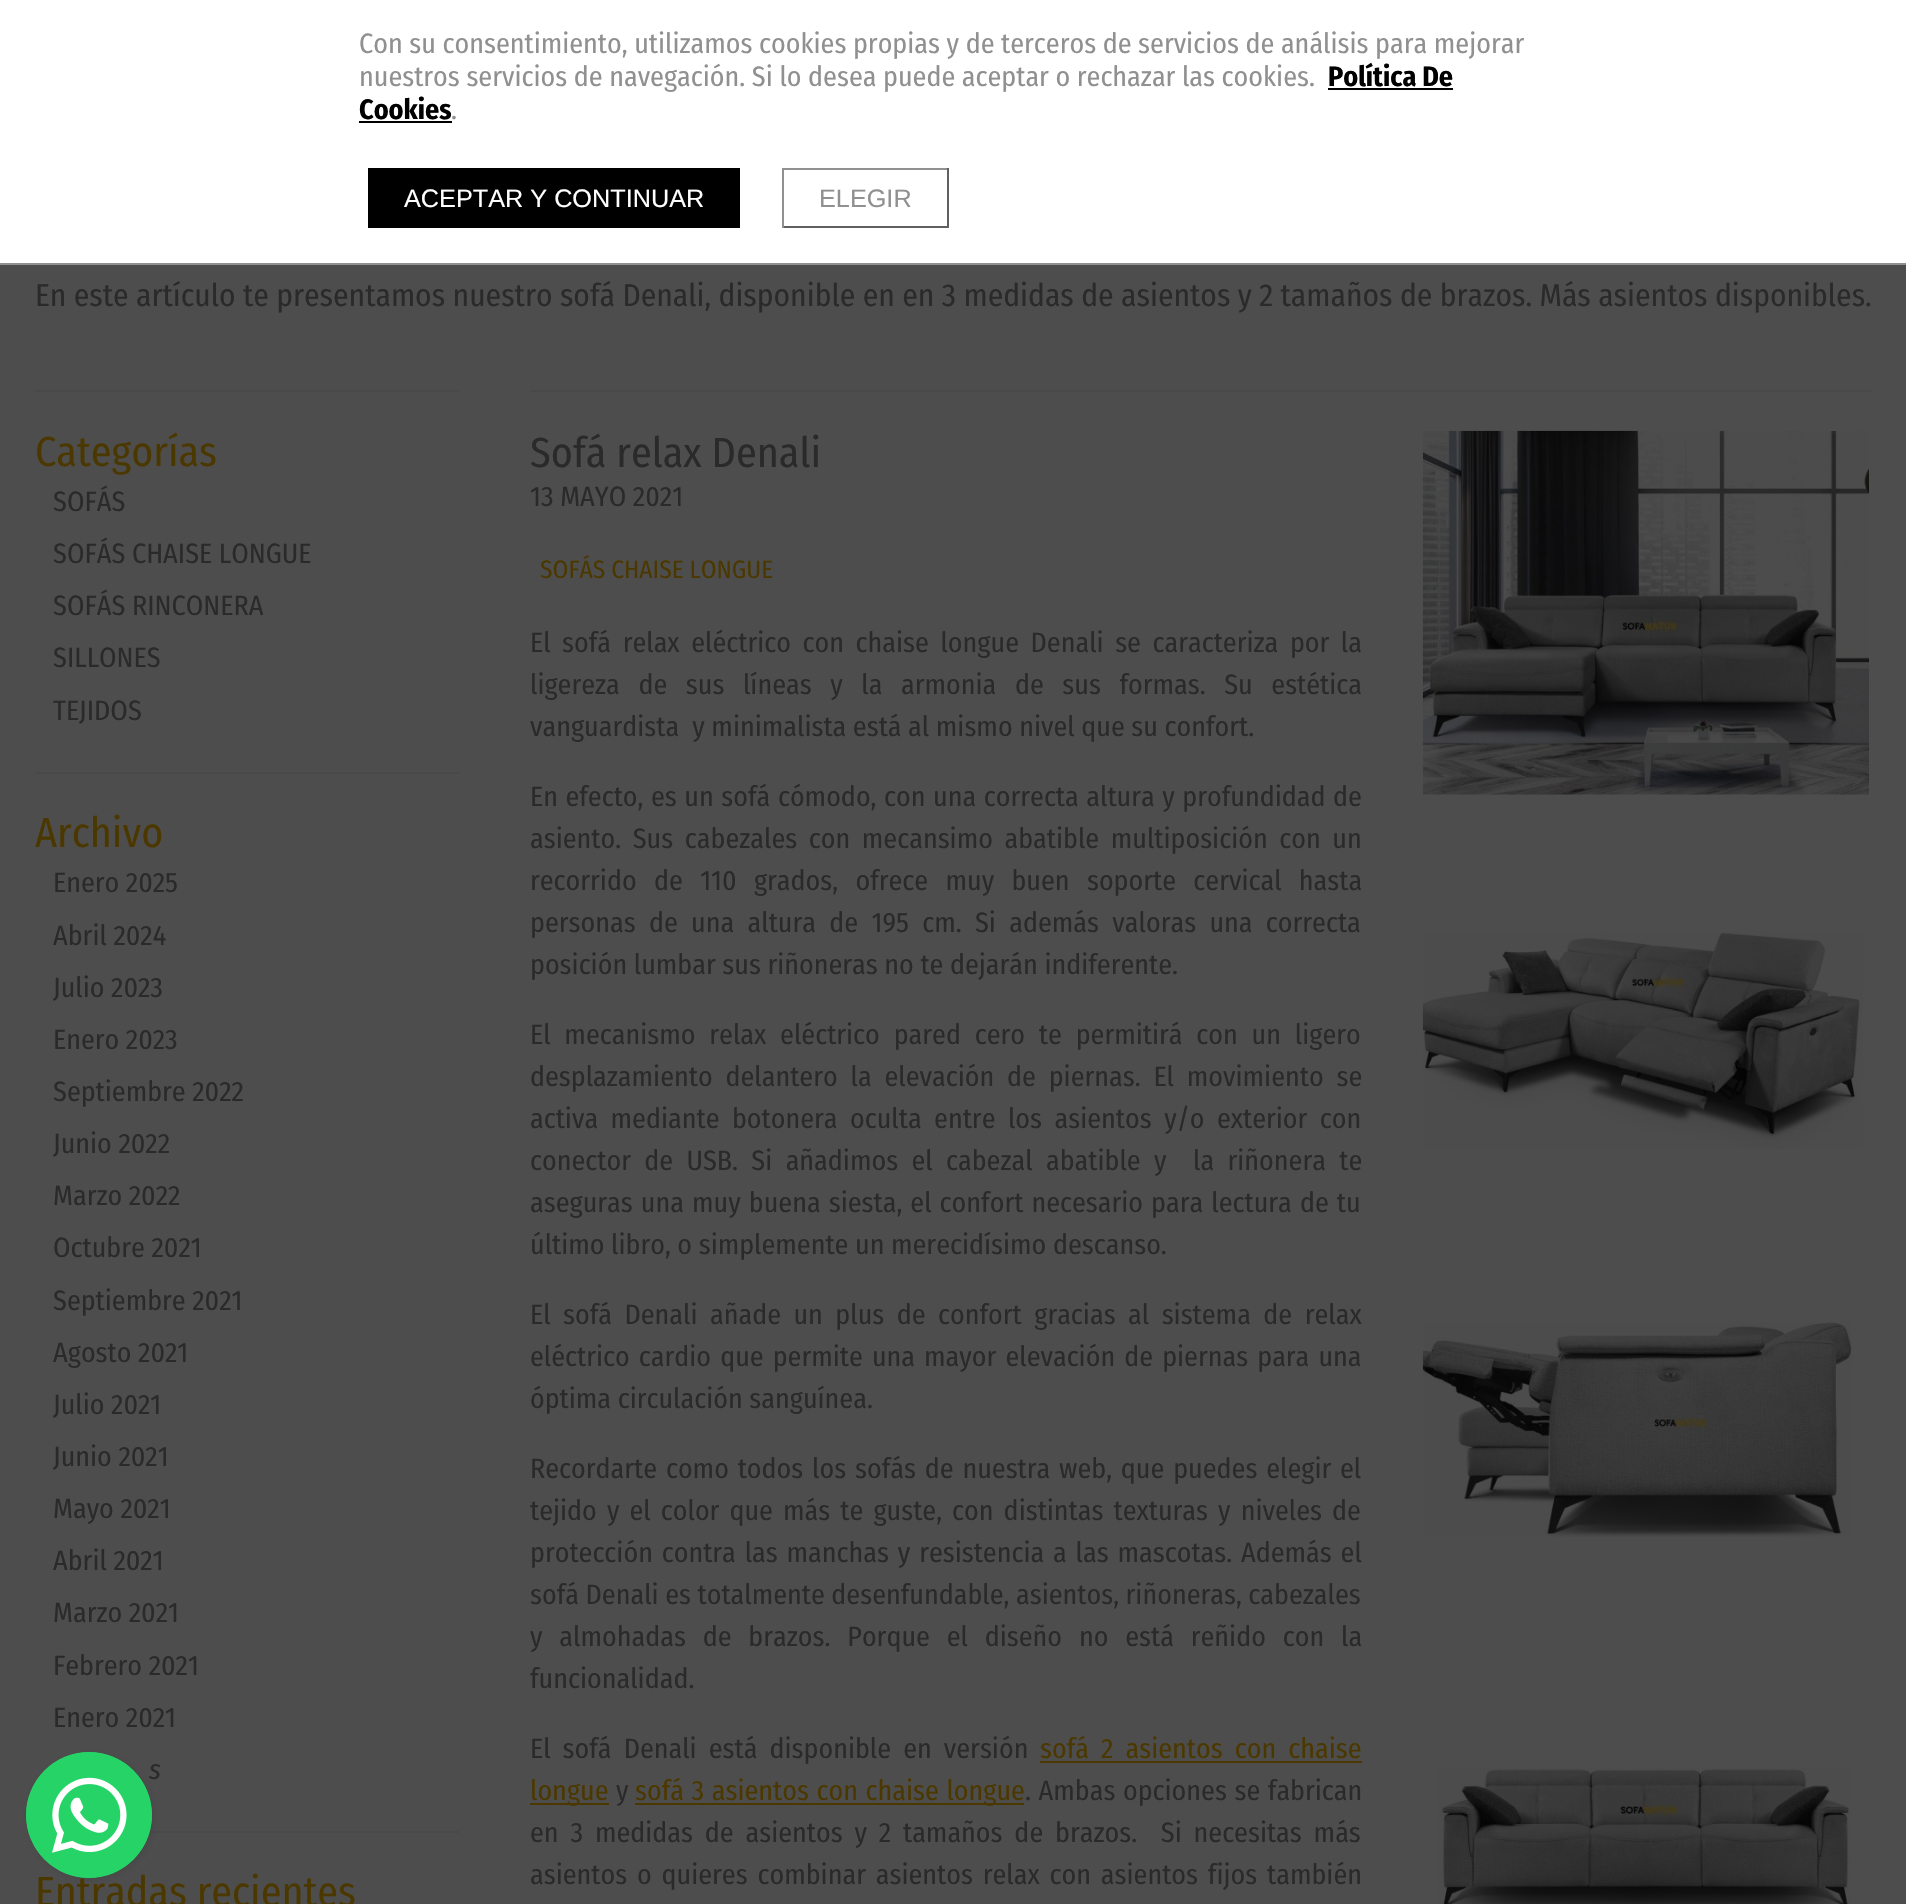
#include "include/core/SkBlurTypes.h"
#include "include/core/SkCanvas.h"
#include "include/core/SkData.h"
#include "include/core/SkFont.h"
#include "include/core/SkFontMgr.h"
#include "include/core/SkImage.h"
#include "include/core/SkMaskFilter.h"
#include "include/core/SkPaint.h"
#include "include/core/SkPathBuilder.h"
#include "include/core/SkTextBlob.h"
#include "include/effects/SkDashPathEffect.h"
#include "include/effects/SkGradientShader.h"
#include "include/utils/SkParsePath.h"

extern sk_sp<SkFontMgr> fontMgr;

void draw(SkCanvas* canvas) {
  SkPaint p;
  p.setAntiAlias(true);
  auto spacedText = [&](const char* s, float x, float y, const SkFont& font, const SkPaint& ink, float letter, float word) {
    std::vector<SkGlyphID> glyphs(font.countText(s, strlen(s), SkTextEncoding::kUTF8));
    std::vector<float> xs(glyphs.size());
    font.textToGlyphs(s, strlen(s), SkTextEncoding::kUTF8, glyphs);
    font.getXPos(glyphs, xs, x);
    float extra = 0;
    for (size_t i = 0; i < glyphs.size(); i++) {
      xs[i] += extra;
      extra += letter + word * (glyphs[i] == font.unicharToGlyph(' '));
    }
    canvas->drawTextBlob(SkTextBlob::MakeFromPosHGlyphs(glyphs, xs, y, font), 0, 0, ink);
  };
  canvas->clear(SkColorSetRGB(77, 77, 77));
  p.setColor(SK_ColorWHITE);
  canvas->drawRect(SkRect::MakeLTRB(0, 0, 1906, 263), p);
  p.setColor(SkColorSetRGB(144, 144, 144));
  canvas->drawRect(SkRect::MakeLTRB(0, 263, 1906, 265), p);
  p.setColor(SK_ColorBLACK);
  canvas->drawRect(SkRect::MakeLTRB(1328, 88, 1453, 90), p);
  canvas->drawRect(SkRect::MakeLTRB(359, 121, 452, 123), p);
  canvas->drawRect(SkRect::MakeLTRB(368, 168, 740, 228), p);
  p.setColor(SkColorSetRGB(144, 144, 144));
  canvas->drawRect(SkRect::MakeLTRB(782, 168, 949, 170), p);
  p.setColor(SkColorSetRGB(96, 96, 96));
  canvas->drawRect(SkRect::MakeLTRB(947, 168, 949, 228), p);
  canvas->drawRect(SkRect::MakeLTRB(782, 226, 949, 228), p);
  p.setColor(SkColorSetRGB(144, 144, 144));
  canvas->drawRect(SkRect::MakeLTRB(782, 168, 784, 228), p);
  p.setColor(SkColorSetRGB(73, 73, 73));
  canvas->drawRect(SkRect::MakeLTRB(35, 390, 459, 392), p);
  canvas->drawRect(SkRect::MakeLTRB(35, 772, 459, 774), p);
  canvas->drawRect(SkRect::MakeLTRB(149, 1831, 459, 1833), p);
  canvas->drawRect(SkRect::MakeLTRB(530, 390, 1873, 392), p);
  p.setColor(SkColorSetRGB(75, 56, 0));
  canvas->drawRect(SkRect::MakeLTRB(1040, 1761, 1362, 1763), p);
  canvas->drawRect(SkRect::MakeLTRB(530, 1803, 609, 1805), p);
  canvas->drawRect(SkRect::MakeLTRB(635, 1803, 1024, 1805), p);
  canvas->drawImageRect(SkImages::DeferredFromEncodedData(SkData::MakeFromFileName("images/1.png")), SkRect::MakeLTRB(1422, 430, 1869, 795), SkSamplingOptions());
  canvas->drawImageRect(SkImages::DeferredFromEncodedData(SkData::MakeFromFileName("images/2.png")), SkRect::MakeLTRB(1422, 932, 1863, 1149), SkSamplingOptions());
  canvas->drawImageRect(SkImages::DeferredFromEncodedData(SkData::MakeFromFileName("images/3.png")), SkRect::MakeLTRB(1422, 1322, 1852, 1537), SkSamplingOptions());
  canvas->drawImageRect(SkImages::DeferredFromEncodedData(SkData::MakeFromFileName("images/4.png")), SkRect::MakeLTRB(1437, 1767, 1851, 1904), SkSamplingOptions());
  p.setColor(SkColorSetARGB(102, 60, 60, 60));
  p.setMaskFilter(SkMaskFilter::MakeBlur(kNormal_SkBlurStyle, 3.5f));
  canvas->drawRoundRect(SkRect::MakeLTRB(28, 1754, 154, 1880), 63, 63, p);
  p.setMaskFilter(nullptr);
  SkFont font1(fontMgr->matchFamilyStyle("Fira Sans Condensed", SkFontStyle::Normal()), 28);
  font1.setSubpixel(true);
  p.setColor(SkColorSetRGB(144, 144, 144));
  canvas->drawString("Con su consentimiento, utilizamos cookies propias y de terceros de servicios de análisis para mejorar", 359, 53, font1, p);
  canvas->drawString("nuestros servicios de navegación. Si lo desea puede aceptar o rechazar las cookies.", 359, 86, font1, p);
  SkFont font2(fontMgr->matchFamilyStyle("Fira Sans Condensed", SkFontStyle::Bold()), 28);
  font2.setSubpixel(true);
  p.setColor(SK_ColorBLACK);
  canvas->drawString("Política De", 1328, 86, font2, p);
  canvas->drawString("Cookies", 359, 119, font2, p);
  p.setColor(SkColorSetRGB(144, 144, 144));
  canvas->drawString(".", 451, 119, font1, p);
  SkFont font3(fontMgr->matchFamilyStyle("Liberation Sans", SkFontStyle::Normal()), 25.25f);
  font3.setSubpixel(true);
  p.setColor(SK_ColorWHITE);
  canvas->drawString("ACEPTAR Y CONTINUAR", 404, 207, font3, p);
  p.setColor(SkColorSetRGB(144, 144, 144));
  canvas->drawString("ELEGIR", 819, 207, font3, p);
  SkFont font4(fontMgr->matchFamilyStyle("Fira Sans Condensed", SkFontStyle::Normal()), 31.5f);
  font4.setSubpixel(true);
  p.setColor(SkColorSetRGB(42, 42, 42));
  canvas->drawString("En este artículo te presentamos nuestro sofá Denali, disponible en en 3 medidas de asientos y 2 tamaños de brazos. Más asientos disponibles.", 35, 306, font4, p);
  SkFont font5(fontMgr->matchFamilyStyle("Fira Sans Condensed", SkFontStyle::Normal()), 42);
  font5.setSubpixel(true);
  p.setColor(SkColorSetRGB(75, 56, 0));
  canvas->drawString("Categorías", 35, 466, font5, p);
  p.setColor(SkColorSetRGB(42, 42, 42));
  canvas->drawString("SOFÁS", 53, 511, font1, p);
  canvas->drawString("SOFÁS CHAISE LONGUE", 53, 563, font1, p);
  canvas->drawString("SOFÁS RINCONERA", 53, 615, font1, p);
  canvas->drawString("SILLONES", 53, 667, font1, p);
  canvas->drawString("TEJIDOS", 53, 720, font1, p);
  p.setColor(SkColorSetRGB(75, 56, 0));
  canvas->drawString("Archivo", 35, 847, font5, p);
  p.setColor(SkColorSetRGB(42, 42, 42));
  canvas->drawString("Enero 2025", 53, 892, font1, p);
  canvas->drawString("Abril 2024", 53, 945, font1, p);
  canvas->drawString("Julio 2023", 53, 997, font1, p);
  canvas->drawString("Enero 2023", 53, 1049, font1, p);
  canvas->drawString("Septiembre 2022", 53, 1101, font1, p);
  canvas->drawString("Junio 2022", 53, 1153, font1, p);
  canvas->drawString("Marzo 2022", 53, 1205, font1, p);
  canvas->drawString("Octubre 2021", 53, 1257, font1, p);
  canvas->drawString("Septiembre 2021", 53, 1310, font1, p);
  canvas->drawString("Agosto 2021", 53, 1362, font1, p);
  canvas->drawString("Julio 2021", 53, 1414, font1, p);
  canvas->drawString("Junio 2021", 53, 1466, font1, p);
  canvas->drawString("Mayo 2021", 53, 1518, font1, p);
  canvas->drawString("Abril 2021", 53, 1570, font1, p);
  canvas->drawString("Marzo 2021", 53, 1622, font1, p);
  canvas->drawString("Febrero 2021", 53, 1675, font1, p);
  canvas->drawString("Enero 2021", 53, 1727, font1, p);
  SkFont font6(fontMgr->matchFamilyStyle("Fira Sans Condensed", SkFontStyle::Italic()), 28);
  font6.setSubpixel(true);
  canvas->drawString("s", 149, 1779, font6, p);
  p.setColor(SkColorSetRGB(75, 56, 0));
  canvas->drawString("Entradas recientes", 35, 1906, font5, p);
  p.setColor(SkColorSetRGB(42, 42, 42));
  canvas->drawString("Sofá relax Denali", 530, 467, font5, p);
  canvas->drawString("13 MAYO 2021", 530, 506, font1, p);
  SkFont font7(fontMgr->matchFamilyStyle("Fira Sans Condensed", SkFontStyle::Normal()), 25.25f);
  font7.setSubpixel(true);
  p.setColor(SkColorSetRGB(75, 56, 0));
  canvas->drawString("SOFÁS CHAISE LONGUE", 540, 578, font7, p);
  p.setColor(SkColorSetRGB(42, 42, 42));
  spacedText("El sofá relax eléctrico con chaise longue Denali se caracteriza por la", 530, 652, font1, p, 0, 5);
  spacedText("ligereza de sus líneas y la armonia de sus formas. Su estética", 530, 694, font1, p, 0, 12);
  canvas->drawString("vanguardista  y minimalista está al mismo nivel que su confort.", 530, 736, font1, p);
  spacedText("En efecto, es un sofá cómodo, con una correcta altura y profundidad de", 530, 806, font1, p, 0, 1);
  spacedText("asiento. Sus cabezales con mecansimo abatible multiposición con un", 530, 848, font1, p, 0, 5);
  spacedText("recorrido de 110 grados, ofrece muy buen soporte cervical hasta", 530, 890, font1, p, 0, 10.75f);
  spacedText("personas de una altura de 195 cm. Si además valoras una correcta", 530, 932, font1, p, 0, 6.75f);
  canvas->drawString("posición lumbar sus riñoneras no te dejarán indiferente.", 530, 974, font1, p);
  spacedText("El mecanismo relax eléctrico pared cero te permitirá con un ligero", 530, 1044, font1, p, 0, 7.25f);
  spacedText("desplazamiento delantero la elevación de piernas. El movimiento se", 530, 1086, font1, p, 0, 6.25f);
  spacedText("activa mediante botonera oculta entre los asientos y/o exterior con", 530, 1128, font1, p, 0, 5.9f);
  spacedText("conector de USB. Si añadimos el cabezal abatible y  la riñonera te", 530, 1170, font1, p, 0, 6.75f);
  spacedText("aseguras una muy buena siesta, el confort necesario para lectura de tu", 530, 1212, font1, p, 0, 1.5f);
  canvas->drawString("último libro, o simplemente un merecidísimo descanso.", 530, 1254, font1, p);
  spacedText("El sofá Denali añade un plus de confort gracias al sistema de relax", 530, 1324, font1, p, 0, 5.9f);
  spacedText("eléctrico cardio que permite una mayor elevación de piernas para una", 530, 1366, font1, p, 0, 2.5f);
  canvas->drawString("óptima circulación sanguínea.", 530, 1408, font1, p);
  spacedText("Recordarte como todos los sofás de nuestra web, que puedes elegir el", 530, 1478, font1, p, 0, 2.25f);
  spacedText("tejido y el color que más te guste, con distintas texturas y niveles de", 530, 1520, font1, p, 0, 3.5f);
  spacedText("protección contra las manchas y resistencia a las mascotas. Además el", 530, 1562, font1, p, 0, 2.25f);
  canvas->drawString("sofá Denali es totalmente desenfundable, asientos, riñoneras, cabezales", 530, 1604, font1, p);
  spacedText("y almohadas de brazos. Porque el diseño no está reñido con la", 530, 1646, font1, p, 0, 10.25f);
  canvas->drawString("funcionalidad.", 530, 1688, font1, p);
  spacedText("El sofá Denali está disponible en versión", 530, 1758, font1, p, 0, 5.5f);
  p.setColor(SkColorSetRGB(75, 56, 0));
  spacedText("sofá 2 asientos con chaise", 1040, 1758, font1, p, 0, 5.5f);
  canvas->drawString("longue", 530, 1800, font1, p);
  p.setColor(SkColorSetRGB(42, 42, 42));
  canvas->drawString("y", 616, 1800, font1, p);
  p.setColor(SkColorSetRGB(75, 56, 0));
  spacedText("sofá 3 asientos con chaise longue", 635, 1800, font1, p, 0, 1);
  p.setColor(SkColorSetRGB(42, 42, 42));
  spacedText(". Ambas opciones se fabrican", 1025, 1800, font1, p, 0, 1);
  spacedText("en 3 medidas de asientos y 2 tamaños de brazos.  Si necesitas más", 530, 1842, font1, p, 0, 5.25f);
  spacedText("asientos o quieres combinar asientos relax con asientos fijos también", 530, 1884, font1, p, 0, 3.25f);
  p.setColor(SkColorSetRGB(37, 211, 102));
  canvas->drawCircle(89, 1815, 63, p);
  canvas->drawImageRect(SkImages::DeferredFromEncodedData(SkData::MakeFromFileName("images/5.png")), SkRect::MakeLTRB(26, 1752, 152, 1878), SkSamplingOptions());
}
